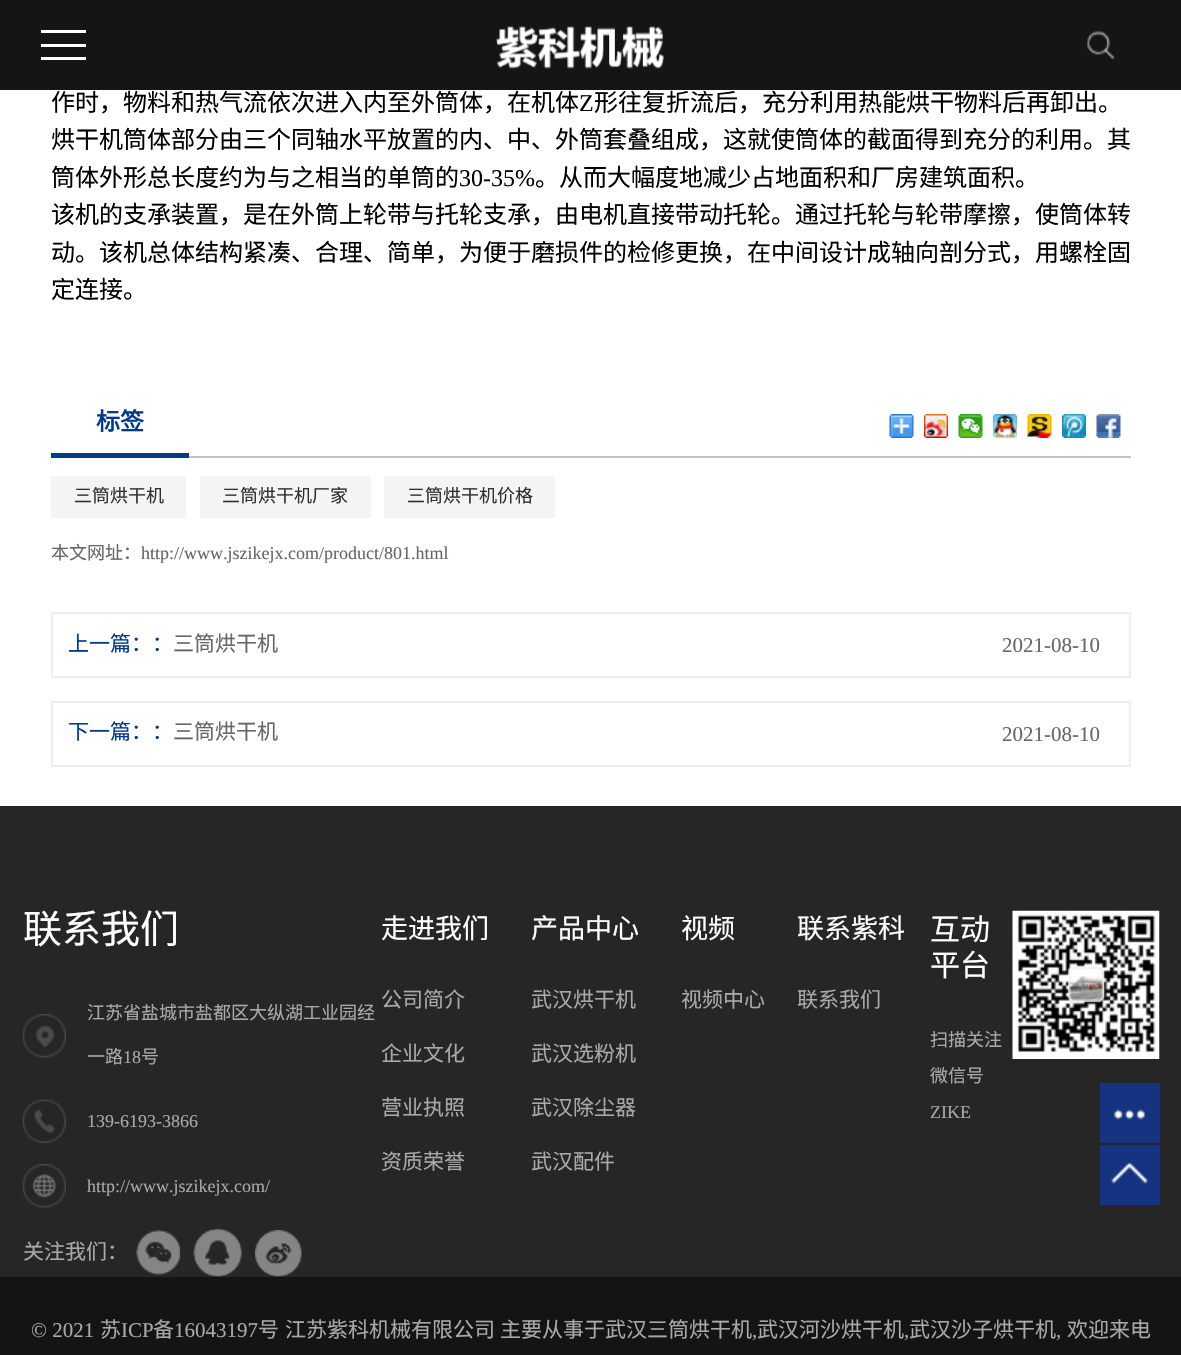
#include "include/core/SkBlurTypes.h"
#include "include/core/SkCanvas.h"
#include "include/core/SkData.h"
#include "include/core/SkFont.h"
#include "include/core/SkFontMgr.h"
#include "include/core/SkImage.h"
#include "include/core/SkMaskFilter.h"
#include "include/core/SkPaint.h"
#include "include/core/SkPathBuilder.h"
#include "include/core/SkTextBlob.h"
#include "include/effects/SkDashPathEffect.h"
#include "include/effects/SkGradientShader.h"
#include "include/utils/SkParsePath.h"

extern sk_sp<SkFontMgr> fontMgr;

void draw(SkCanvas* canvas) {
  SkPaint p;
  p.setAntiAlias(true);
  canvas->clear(SK_ColorWHITE);
  p.setColor(SkColorSetRGB(21, 21, 21));
  canvas->drawRect(SkRect::MakeLTRB(0, 0, 1181, 90), p);
  p.setColor(SK_ColorWHITE);
  canvas->drawRect(SkRect::MakeLTRB(41, 30, 86, 33), p);
  canvas->drawRect(SkRect::MakeLTRB(41, 44, 86, 47), p);
  canvas->drawRect(SkRect::MakeLTRB(41, 57, 86, 60), p);
  canvas->drawImageRect(SkImages::DeferredFromEncodedData(SkData::MakeFromFileName("images/1.png")), SkRect::MakeLTRB(496, 26, 664, 69), SkSamplingOptions());
  canvas->drawImageRect(SkImages::DeferredFromEncodedData(SkData::MakeFromFileName("images/2.png")), SkRect::MakeLTRB(1087, 30, 1115, 60), SkSamplingOptions());
  p.setColor(SkColorSetRGB(195, 195, 195));
  canvas->drawRect(SkRect::MakeLTRB(189, 456, 1131, 458), p);
  p.setColor(SkColorSetRGB(1, 58, 143));
  canvas->drawRect(SkRect::MakeLTRB(51, 453, 189, 458), p);
  canvas->drawImageRect(SkImages::DeferredFromEncodedData(SkData::MakeFromFileName("images/3.png")), SkRect::MakeLTRB(889, 414, 914, 438), SkSamplingOptions());
  canvas->drawImageRect(SkImages::DeferredFromEncodedData(SkData::MakeFromFileName("images/4.png")), SkRect::MakeLTRB(924, 414, 948, 438), SkSamplingOptions());
  canvas->drawImageRect(SkImages::DeferredFromEncodedData(SkData::MakeFromFileName("images/5.png")), SkRect::MakeLTRB(958, 414, 983, 438), SkSamplingOptions());
  canvas->drawImageRect(SkImages::DeferredFromEncodedData(SkData::MakeFromFileName("images/6.png")), SkRect::MakeLTRB(993, 414, 1017, 438), SkSamplingOptions());
  canvas->drawImageRect(SkImages::DeferredFromEncodedData(SkData::MakeFromFileName("images/7.png")), SkRect::MakeLTRB(1027, 414, 1052, 438), SkSamplingOptions());
  canvas->drawImageRect(SkImages::DeferredFromEncodedData(SkData::MakeFromFileName("images/8.png")), SkRect::MakeLTRB(1062, 414, 1086, 438), SkSamplingOptions());
  canvas->drawImageRect(SkImages::DeferredFromEncodedData(SkData::MakeFromFileName("images/9.png")), SkRect::MakeLTRB(1096, 414, 1121, 438), SkSamplingOptions());
  p.setColor(SkColorSetRGB(244, 244, 244));
  canvas->drawRect(SkRect::MakeLTRB(51, 476, 186, 518), p);
  canvas->drawRect(SkRect::MakeLTRB(200, 476, 371, 518), p);
  canvas->drawRect(SkRect::MakeLTRB(384, 476, 555, 518), p);
  p.setStyle(SkPaint::kStroke_Style);
  p.setStrokeWidth(2);
  p.setColor(SkColorSetRGB(238, 238, 238));
  canvas->drawRect(SkRect::MakeLTRB(52, 613, 1130, 677), p);
  canvas->drawRect(SkRect::MakeLTRB(52, 702, 1130, 766), p);
  p.setStyle(SkPaint::kFill_Style);
  p.setColor(SkColorSetRGB(38, 38, 38));
  canvas->drawRect(SkRect::MakeLTRB(0, 806, 1181, 1277), p);
  p.setColor(SkColorSetRGB(22, 51, 129));
  canvas->drawRect(SkRect::MakeLTRB(1100, 1083, 1160, 1143), p);
  canvas->drawImageRect(SkImages::DeferredFromEncodedData(SkData::MakeFromFileName("images/10.png")), SkRect::MakeLTRB(1114, 1109, 1145, 1120), SkSamplingOptions());
  canvas->drawRect(SkRect::MakeLTRB(1100, 1145, 1160, 1205), p);
  canvas->drawImageRect(SkImages::DeferredFromEncodedData(SkData::MakeFromFileName("images/11.png")), SkRect::MakeLTRB(1111, 1162, 1148, 1184), SkSamplingOptions());
  canvas->drawImageRect(SkImages::DeferredFromEncodedData(SkData::MakeFromFileName("images/12.png")), SkRect::MakeLTRB(22, 1014, 66, 1058), SkSamplingOptions());
  canvas->drawImageRect(SkImages::DeferredFromEncodedData(SkData::MakeFromFileName("images/13.png")), SkRect::MakeLTRB(22, 1099, 66, 1143), SkSamplingOptions());
  canvas->drawImageRect(SkImages::DeferredFromEncodedData(SkData::MakeFromFileName("images/14.png")), SkRect::MakeLTRB(22, 1164, 66, 1208), SkSamplingOptions());
  canvas->drawImageRect(SkImages::DeferredFromEncodedData(SkData::MakeFromFileName("images/15.png")), SkRect::MakeLTRB(136, 1230, 180, 1275), SkSamplingOptions());
  canvas->drawImageRect(SkImages::DeferredFromEncodedData(SkData::MakeFromFileName("images/16.png")), SkRect::MakeLTRB(193, 1228, 242, 1277), SkSamplingOptions());
  canvas->drawImageRect(SkImages::DeferredFromEncodedData(SkData::MakeFromFileName("images/17.png")), SkRect::MakeLTRB(255, 1230, 302, 1277), SkSamplingOptions());
  canvas->drawImageRect(SkImages::DeferredFromEncodedData(SkData::MakeFromFileName("images/18.png")), SkRect::MakeLTRB(1012, 910, 1160, 1059), SkSamplingOptions());
  p.setColor(SkColorSetRGB(20, 20, 20));
  canvas->drawRect(SkRect::MakeLTRB(0, 1277, 1181, 1355), p);
  SkFont font1(fontMgr->matchFamilyStyle("Noto Sans CJK SC", SkFontStyle::Normal()), 24);
  font1.setSubpixel(true);
  p.setColor(SK_ColorBLACK);
  canvas->drawString("作时，物料和热气流依次进入内至外筒体，在机体", 51, 111, font1, p);
  SkFont font2(fontMgr->matchFamilyStyle("Liberation Serif", SkFontStyle::Normal()), 24);
  font2.setSubpixel(true);
  canvas->drawString("Z", 579, 111, font2, p);
  canvas->drawString("形往复折流后，充分利用热能烘干物料后再卸出。", 594, 111, font1, p);
  canvas->drawString("烘干机筒体部分由三个同轴水平放置的内、中、外筒套叠组成，这就使筒体的截面得到充分的利用。其", 51, 148, font1, p);
  canvas->drawString("筒体外形总长度约为与之相当的单筒的", 51, 186, font1, p);
  canvas->drawString("30-35%", 459, 186, font2, p);
  canvas->drawString("。从而大幅度地减少占地面积和厂房建筑面积。", 535, 186, font1, p);
  canvas->drawString("该机的支承装置，是在外筒上轮带与托轮支承，由电机直接带动托轮。通过托轮与轮带摩擦，使筒体转", 51, 223, font1, p);
  canvas->drawString("动。该机总体结构紧凑、合理、简单，为便于磨损件的检修更换，在中间设计成轴向剖分式，用螺栓固", 51, 261, font1, p);
  canvas->drawString("定连接。", 51, 298, font1, p);
  SkFont font3(fontMgr->matchFamilyStyle("Noto Sans CJK SC", SkFontStyle::Bold()), 24);
  font3.setSubpixel(true);
  p.setColor(SkColorSetRGB(1, 58, 143));
  canvas->drawString("标签", 96, 430, font3, p);
  SkFont font4(fontMgr->matchFamilyStyle("Noto Sans CJK SC", SkFontStyle::Normal()), 18);
  font4.setSubpixel(true);
  p.setColor(SkColorSetRGB(47, 47, 47));
  canvas->drawString("三筒烘干机", 74, 502, font4, p);
  canvas->drawString("三筒烘干机厂家", 222, 502, font4, p);
  canvas->drawString("三筒烘干机价格", 407, 502, font4, p);
  p.setColor(SkColorSetRGB(102, 102, 102));
  canvas->drawString("本文网址：", 51, 559, font4, p);
  SkFont font5(fontMgr->matchFamilyStyle("Liberation Serif", SkFontStyle::Normal()), 18);
  font5.setSubpixel(true);
  canvas->drawString("http://www.jszikejx.com/product/801.html", 141, 559, font5, p);
  SkFont font6(fontMgr->matchFamilyStyle("Noto Sans CJK SC", SkFontStyle::Normal()), 21);
  font6.setSubpixel(true);
  p.setColor(SkColorSetRGB(1, 58, 143));
  canvas->drawString("上一篇：：", 68, 651, font6, p);
  p.setColor(SkColorSetRGB(102, 102, 102));
  canvas->drawString("三筒烘干机", 173, 651, font6, p);
  SkFont font7(fontMgr->matchFamilyStyle("Liberation Serif", SkFontStyle::Normal()), 21);
  font7.setSubpixel(true);
  canvas->drawString("2021-08-10", 1002, 652, font7, p);
  p.setColor(SkColorSetRGB(1, 58, 143));
  canvas->drawString("下一篇：：", 68, 739, font6, p);
  p.setColor(SkColorSetRGB(102, 102, 102));
  canvas->drawString("三筒烘干机", 173, 739, font6, p);
  canvas->drawString("2021-08-10", 1002, 741, font7, p);
  SkFont font8(fontMgr->matchFamilyStyle("Noto Sans CJK SC", SkFontStyle::Normal()), 39);
  font8.setSubpixel(true);
  p.setColor(SK_ColorWHITE);
  canvas->drawString("联系我们", 23, 943, font8, p);
  p.setColor(SkColorSetRGB(169, 169, 169));
  canvas->drawString("江苏省盐城市盐都区大纵湖工业园经", 87, 1019, font4, p);
  canvas->drawString("一路", 87, 1063, font4, p);
  canvas->drawString("18", 123, 1063, font5, p);
  canvas->drawString("号", 141, 1063, font4, p);
  canvas->drawString("139-6193-3866", 87, 1127, font5, p);
  canvas->drawString("http://www.jszikejx.com/", 87, 1192, font5, p);
  canvas->drawString("关注我们：", 23, 1259, font6, p);
  SkFont font9(fontMgr->matchFamilyStyle("Noto Sans CJK SC", SkFontStyle::Normal()), 27);
  font9.setSubpixel(true);
  p.setColor(SK_ColorWHITE);
  canvas->drawString("走进我们", 381, 938, font9, p);
  p.setColor(SkColorSetRGB(169, 169, 169));
  canvas->drawString("公司简介", 381, 1007, font6, p);
  canvas->drawString("企业文化", 381, 1061, font6, p);
  canvas->drawString("营业执照", 381, 1115, font6, p);
  canvas->drawString("资质荣誉", 381, 1169, font6, p);
  p.setColor(SK_ColorWHITE);
  canvas->drawString("产品中心", 531, 938, font9, p);
  p.setColor(SkColorSetRGB(169, 169, 169));
  canvas->drawString("武汉烘干机", 531, 1007, font6, p);
  canvas->drawString("武汉选粉机", 531, 1061, font6, p);
  canvas->drawString("武汉除尘器", 531, 1115, font6, p);
  canvas->drawString("武汉配件", 531, 1169, font6, p);
  p.setColor(SK_ColorWHITE);
  canvas->drawString("视频", 681, 938, font9, p);
  p.setColor(SkColorSetRGB(169, 169, 169));
  canvas->drawString("视频中心", 681, 1007, font6, p);
  p.setColor(SK_ColorWHITE);
  canvas->drawString("联系紫科", 797, 938, font9, p);
  p.setColor(SkColorSetRGB(169, 169, 169));
  canvas->drawString("联系我们", 797, 1007, font6, p);
  SkFont font10(fontMgr->matchFamilyStyle("Noto Sans CJK SC", SkFontStyle::Normal()), 30);
  font10.setSubpixel(true);
  p.setColor(SK_ColorWHITE);
  canvas->drawString("互动", 930, 940, font10, p);
  canvas->drawString("平台", 930, 976, font10, p);
  p.setColor(SkColorSetRGB(169, 169, 169));
  canvas->drawString("扫描关注", 930, 1046, font4, p);
  canvas->drawString("微信号", 930, 1082, font4, p);
  canvas->drawString("ZIKE", 930, 1118, font5, p);
  canvas->drawString("© 2021", 31, 1337, font7, p);
  canvas->drawString("苏", 100, 1337, font6, p);
  canvas->drawString("ICP", 121, 1337, font7, p);
  canvas->drawString("备", 153, 1337, font6, p);
  canvas->drawString("16043197", 174, 1337, font7, p);
  canvas->drawString("号", 258, 1337, font6, p);
  canvas->drawString("江苏紫科机械有限公司", 285, 1337, font6, p);
  canvas->drawString("主要从事于武汉三筒烘干机", 500, 1337, font6, p);
  canvas->drawString(",", 752, 1337, font7, p);
  canvas->drawString("武汉河沙烘干机", 757, 1337, font6, p);
  canvas->drawString(",", 904, 1337, font7, p);
  canvas->drawString("武汉沙子烘干机", 909, 1337, font6, p);
  canvas->drawString(",", 1056, 1337, font7, p);
  canvas->drawString("欢迎来电", 1067, 1337, font6, p);
}
